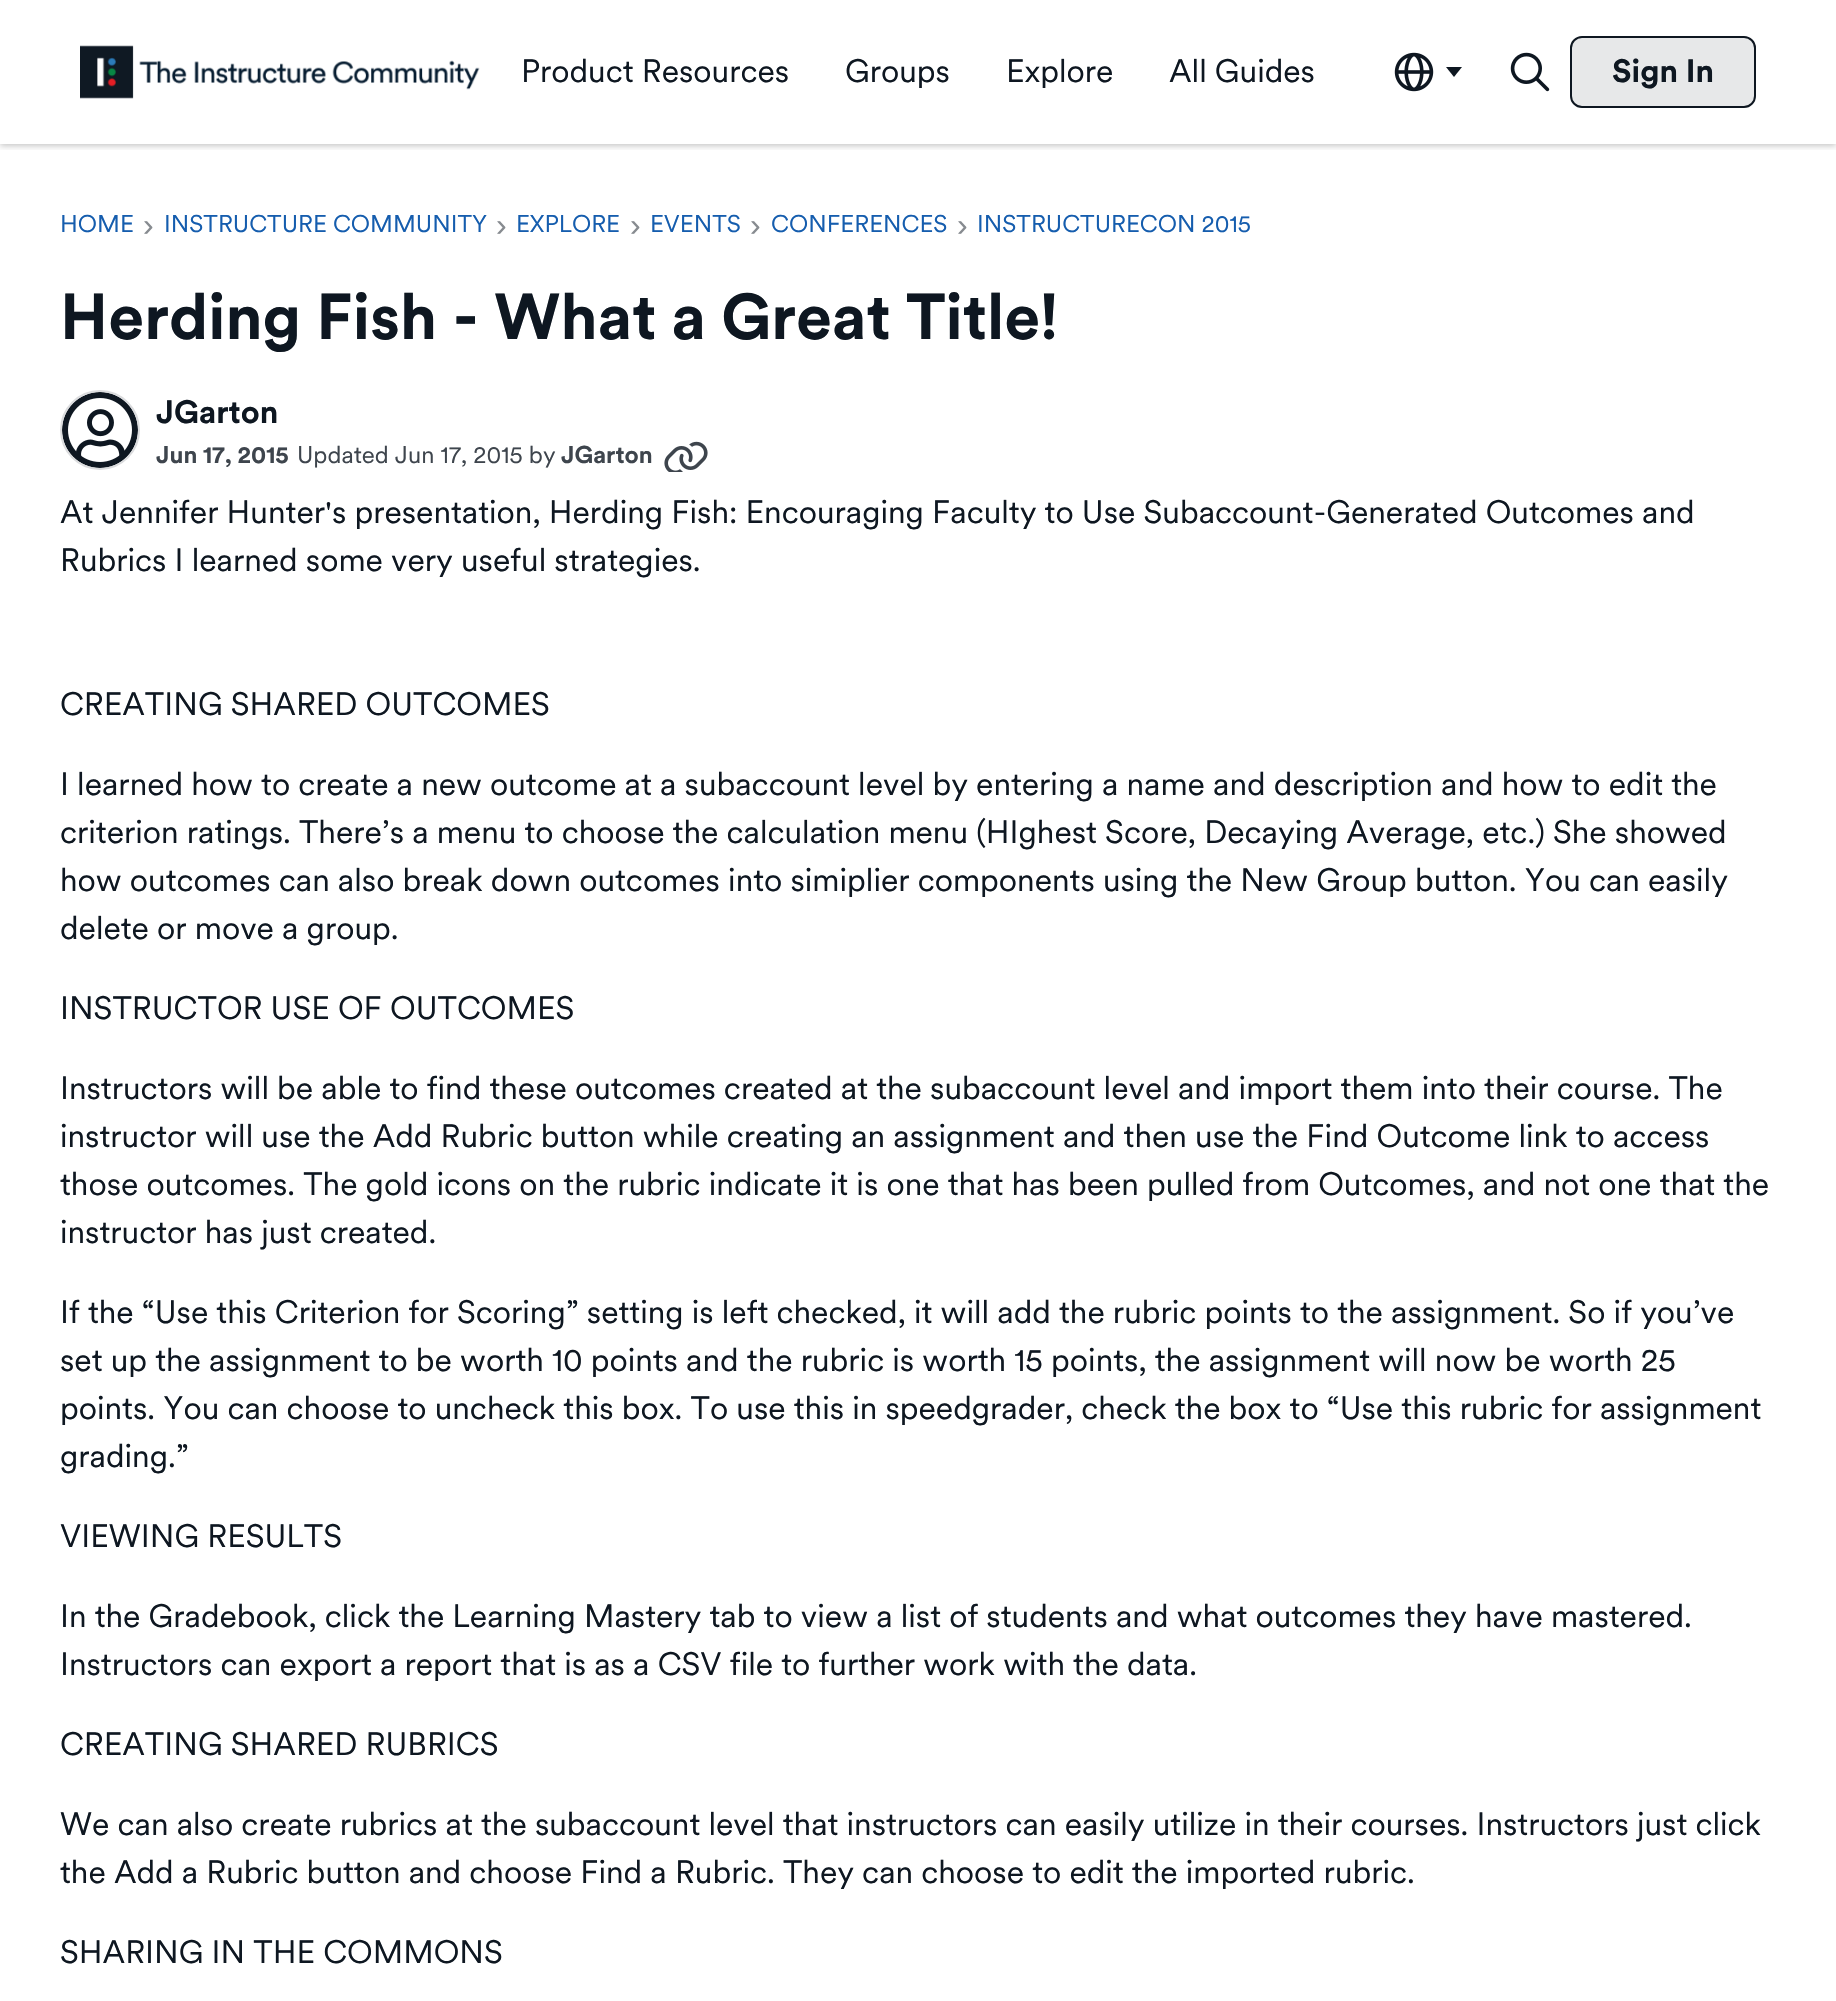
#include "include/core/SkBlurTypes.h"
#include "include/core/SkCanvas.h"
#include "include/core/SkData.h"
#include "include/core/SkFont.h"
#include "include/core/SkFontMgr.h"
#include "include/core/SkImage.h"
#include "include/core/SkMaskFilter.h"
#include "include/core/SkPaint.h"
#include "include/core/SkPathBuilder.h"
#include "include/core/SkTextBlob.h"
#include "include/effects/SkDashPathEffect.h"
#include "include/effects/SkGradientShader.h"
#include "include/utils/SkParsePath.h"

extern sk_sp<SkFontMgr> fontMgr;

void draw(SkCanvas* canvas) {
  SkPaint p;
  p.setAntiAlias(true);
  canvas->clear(SK_ColorWHITE);
  canvas->save();
  canvas->clipRect(SkRect::MakeLTRB(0, 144, 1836, 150));
  p.setColor(SkColorSetARGB(56, 0, 0, 0));
  p.setMaskFilter(SkMaskFilter::MakeBlur(kNormal_SkBlurStyle, 3));
  canvas->drawRect(SkRect::MakeLTRB(0, 2, 1836, 146), p);
  p.setMaskFilter(nullptr);
  canvas->restore();
  canvas->drawImageRect(SkImages::DeferredFromEncodedData(SkData::MakeFromFileName("images/1.png")), SkRect::MakeLTRB(80, 45, 480, 99), SkSamplingOptions());
  canvas->drawImageRect(SkImages::DeferredFromEncodedData(SkData::MakeFromFileName("images/2.png")), SkRect::MakeLTRB(1394, 52, 1434, 92), SkSamplingOptions());
  p.setColor(SkColorSetRGB(14, 23, 33));
  canvas->drawPath(SkPathBuilder().moveTo(1446, 67).lineTo(1462, 67).lineTo(1454, 77).close().detach(), p);
  canvas->drawImageRect(SkImages::DeferredFromEncodedData(SkData::MakeFromFileName("images/3.png")), SkRect::MakeLTRB(1510, 52, 1550, 92), SkSamplingOptions());
  p.setColor(SkColorSetRGB(231, 232, 233));
  canvas->drawRoundRect(SkRect::MakeLTRB(1571, 37, 1755, 107), 11, 11, p);
  p.setStyle(SkPaint::kStroke_Style);
  p.setStrokeWidth(2);
  p.setColor(SkColorSetRGB(14, 23, 33));
  canvas->drawRoundRect(SkRect::MakeLTRB(1571, 37, 1755, 107), 11, 11, p);
  p.setColor(SkColorSetRGB(219, 220, 222));
  canvas->drawCircle(100, 430, 39, p);
  canvas->drawImageRect(SkImages::DeferredFromEncodedData(SkData::MakeFromFileName("images/4.png")), SkRect::MakeLTRB(62, 392, 138, 468), SkSamplingOptions());
  canvas->drawImageRect(SkImages::DeferredFromEncodedData(SkData::MakeFromFileName("images/5.png")), SkRect::MakeLTRB(664, 441, 708, 472), SkSamplingOptions());
  SkFont font1(fontMgr->matchFamilyStyle("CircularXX", SkFontStyle::Normal()), 32);
  font1.setSubpixel(true);
  p.setStyle(SkPaint::kFill_Style);
  p.setColor(SkColorSetRGB(14, 23, 33));
  canvas->drawString("Product Resources", 521, 82, font1, p);
  canvas->drawString("Groups", 845, 82, font1, p);
  canvas->drawString("Explore", 1006, 82, font1, p);
  canvas->drawString("All Guides", 1169, 82, font1, p);
  SkFont font2(fontMgr->matchFamilyStyle("CircularXX", SkFontStyle::Bold()), 32);
  font2.setSubpixel(true);
  canvas->drawString("Sign In", 1612, 82, font2, p);
  SkFont font3(fontMgr->matchFamilyStyle("CircularXX", SkFontStyle::Normal()), 24);
  font3.setSubpixel(true);
  p.setColor(SkColorSetRGB(21, 93, 174));
  canvas->drawString("HOME", 60, 232, font3, p);
  SkFont font4(fontMgr->matchFamilyStyle("Liberation Sans", SkFontStyle::Normal()), 32);
  font4.setSubpixel(true);
  p.setColor(SkColorSetRGB(135, 139, 144));
  canvas->drawString("›", 143, 236, font4, p);
  p.setColor(SkColorSetRGB(21, 93, 174));
  canvas->drawString("INSTRUCTURE COMMUNITY", 164, 232, font3, p);
  p.setColor(SkColorSetRGB(135, 139, 144));
  canvas->drawString("›", 496, 236, font4, p);
  p.setColor(SkColorSetRGB(21, 93, 174));
  canvas->drawString("EXPLORE", 516, 232, font3, p);
  p.setColor(SkColorSetRGB(135, 139, 144));
  canvas->drawString("›", 630, 236, font4, p);
  p.setColor(SkColorSetRGB(21, 93, 174));
  canvas->drawString("EVENTS", 650, 232, font3, p);
  p.setColor(SkColorSetRGB(135, 139, 144));
  canvas->drawString("›", 750, 236, font4, p);
  p.setColor(SkColorSetRGB(21, 93, 174));
  canvas->drawString("CONFERENCES", 771, 232, font3, p);
  p.setColor(SkColorSetRGB(135, 139, 144));
  canvas->drawString("›", 957, 236, font4, p);
  p.setColor(SkColorSetRGB(21, 93, 174));
  canvas->drawString("INSTRUCTURECON 2015", 977, 232, font3, p);
  SkFont font5(fontMgr->matchFamilyStyle("CircularXX", SkFontStyle::Bold()), 64);
  font5.setSubpixel(true);
  p.setColor(SkColorSetRGB(14, 23, 33));
  canvas->drawString("Herding Fish - What a Great Title!", 60, 339, font5, p);
  canvas->drawString("JGarton", 156, 423, font2, p);
  SkFont font6(fontMgr->matchFamilyStyle("CircularXX", SkFontStyle::Bold()), 24);
  font6.setSubpixel(true);
  p.setColor(SkColorSetRGB(62, 69, 77));
  canvas->drawString("Jun 17, 2015", 156, 463, font6, p);
  canvas->drawString("Updated Jun 17, 2015 by", 297, 463, font3, p);
  canvas->drawString("JGarton", 561, 463, font6, p);
  p.setColor(SkColorSetRGB(14, 23, 33));
  canvas->drawString("At Jennifer Hunter's presentation, Herding Fish: Encouraging Faculty to Use Subaccount-Generated Outcomes and", 60, 523, font1, p);
  canvas->drawString("Rubrics I learned some very useful strategies.", 60, 571, font1, p);
  canvas->drawString("CREATING SHARED OUTCOMES", 60, 715, font1, p);
  canvas->drawString("I learned how to create a new outcome at a subaccount level by entering a name and description and how to edit the", 60, 795, font1, p);
  canvas->drawString("criterion ratings. There’s a menu to choose the calculation menu (HIghest Score, Decaying Average, etc.) She showed", 60, 843, font1, p);
  canvas->drawString("how outcomes can also break down outcomes into simiplier components using the New Group button. You can easily", 60, 891, font1, p);
  canvas->drawString("delete or move a group.", 60, 939, font1, p);
  canvas->drawString("INSTRUCTOR USE OF OUTCOMES", 60, 1019, font1, p);
  canvas->drawString("Instructors will be able to find these outcomes created at the subaccount level and import them into their course. The", 60, 1099, font1, p);
  canvas->drawString("instructor will use the Add Rubric button while creating an assignment and then use the Find Outcome link to access", 60, 1147, font1, p);
  canvas->drawString("those outcomes. The gold icons on the rubric indicate it is one that has been pulled from Outcomes, and not one that the", 60, 1195, font1, p);
  canvas->drawString("instructor has just created.", 60, 1243, font1, p);
  canvas->drawString("If the “Use this Criterion for Scoring” setting is left checked, it will add the rubric points to the assignment. So if you’ve", 60, 1323, font1, p);
  canvas->drawString("set up the assignment to be worth 10 points and the rubric is worth 15 points, the assignment will now be worth 25", 60, 1371, font1, p);
  canvas->drawString("points. You can choose to uncheck this box. To use this in speedgrader, check the box to “Use this rubric for assignment", 60, 1419, font1, p);
  canvas->drawString("grading.”", 60, 1467, font1, p);
  canvas->drawString("VIEWING RESULTS", 60, 1547, font1, p);
  canvas->drawString("In the Gradebook, click the Learning Mastery tab to view a list of students and what outcomes they have mastered.", 60, 1627, font1, p);
  canvas->drawString("Instructors can export a report that is as a CSV file to further work with the data.", 60, 1675, font1, p);
  canvas->drawString("CREATING SHARED RUBRICS", 60, 1755, font1, p);
  canvas->drawString("We can also create rubrics at the subaccount level that instructors can easily utilize in their courses. Instructors just click", 60, 1835, font1, p);
  canvas->drawString("the Add a Rubric button and choose Find a Rubric. They can choose to edit the imported rubric.", 60, 1883, font1, p);
  canvas->drawString("SHARING IN THE COMMONS", 60, 1963, font1, p);
}
